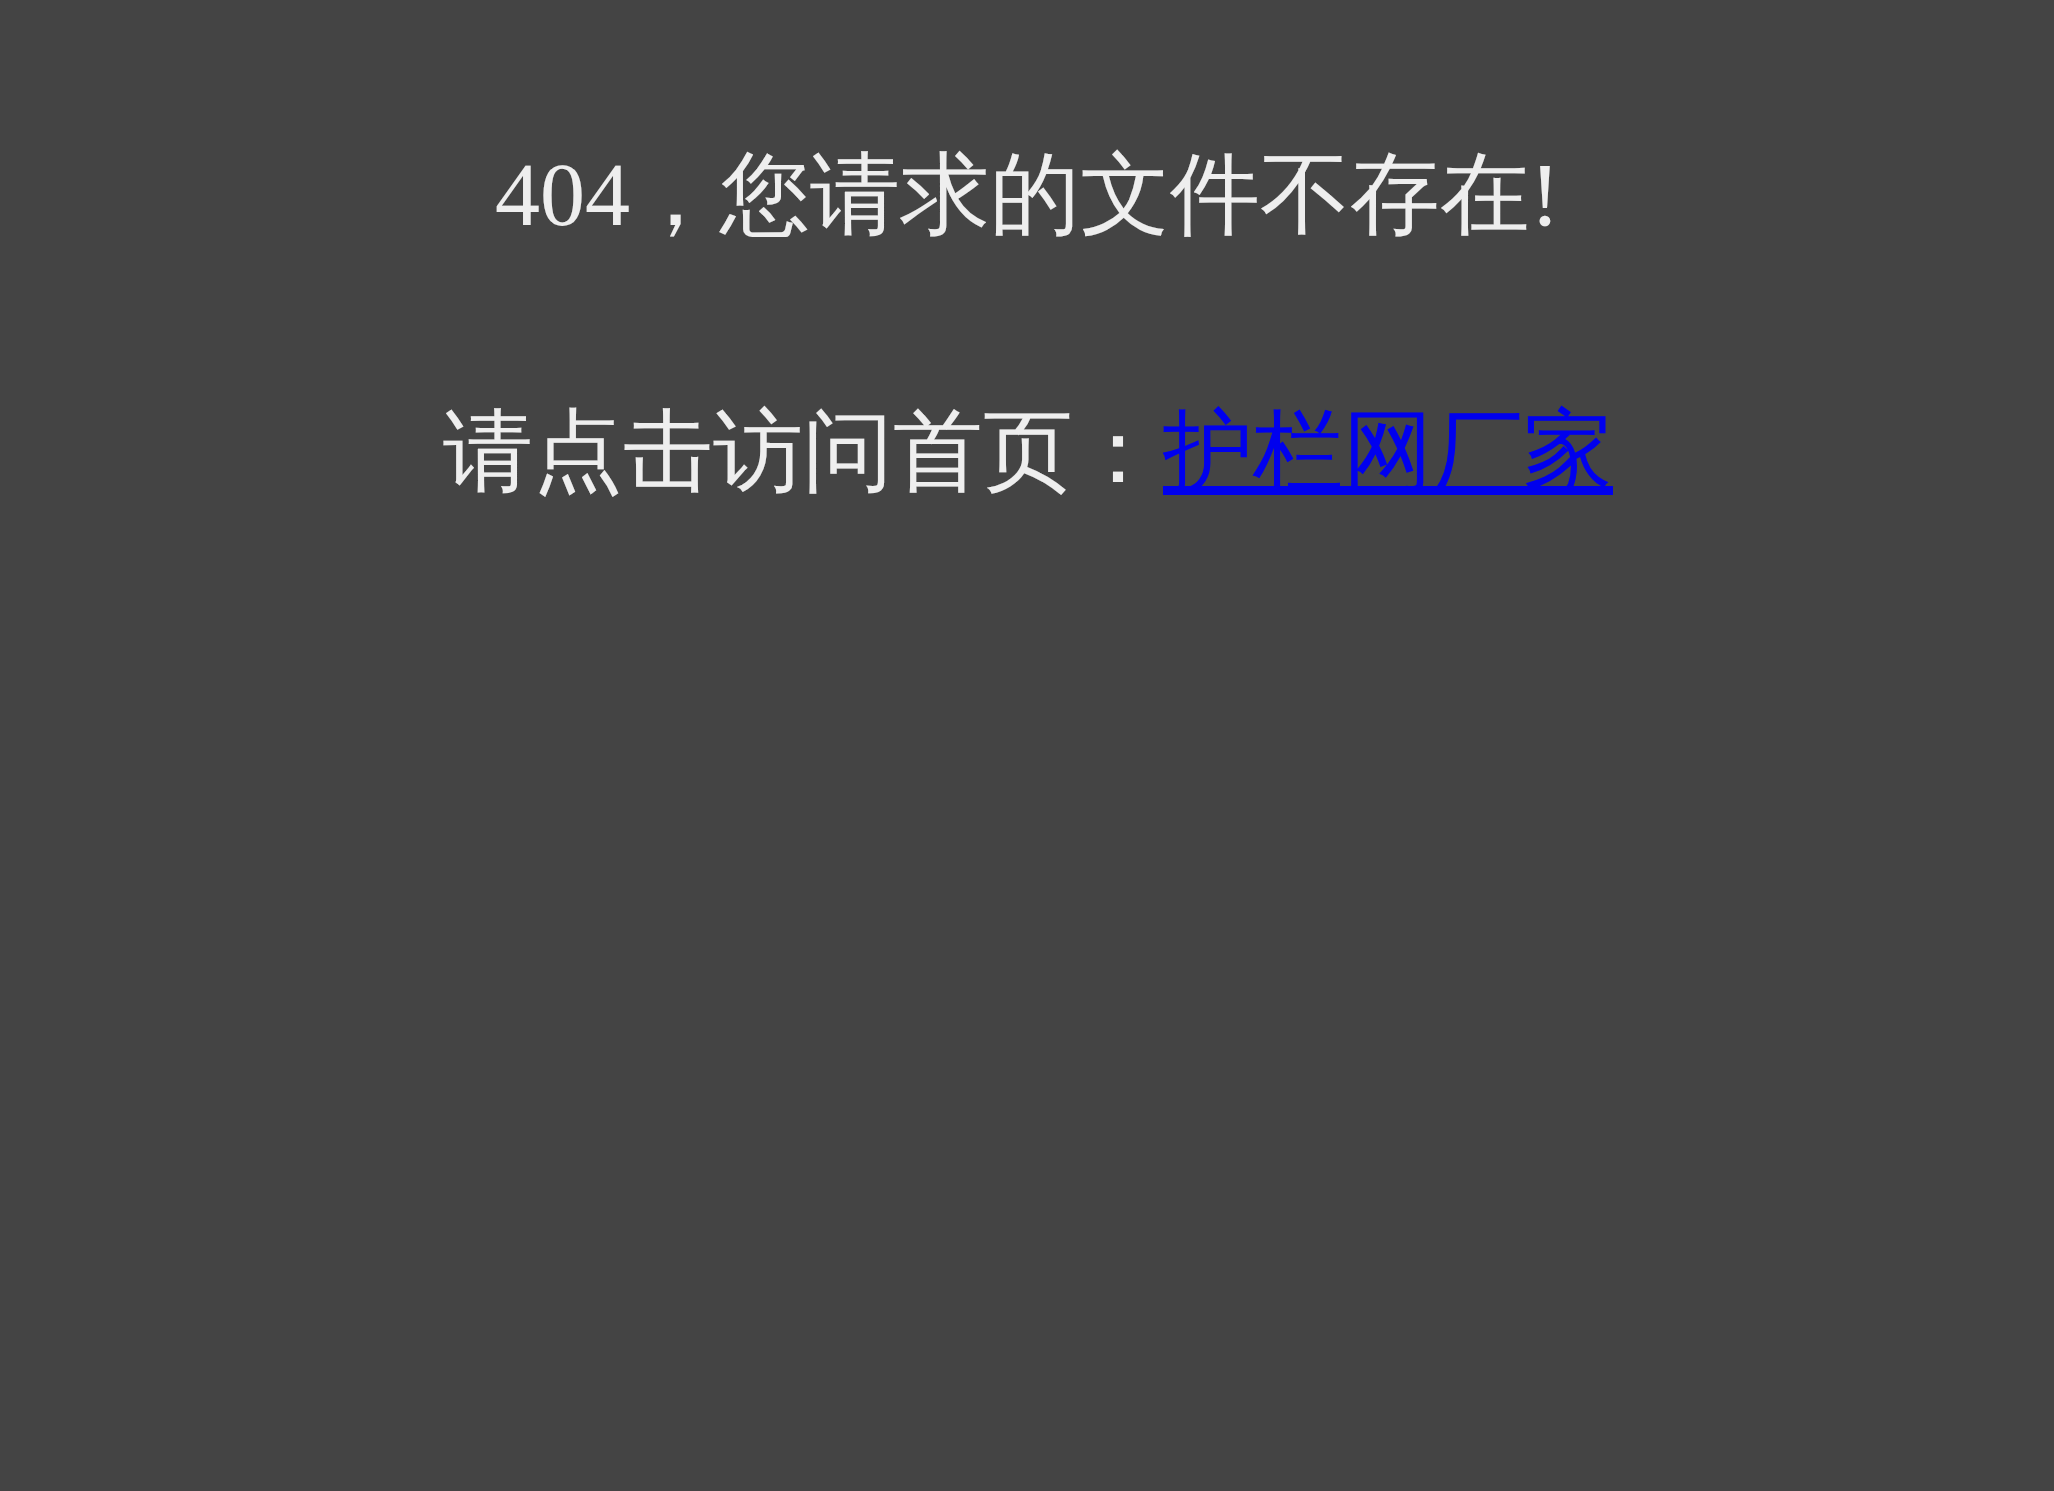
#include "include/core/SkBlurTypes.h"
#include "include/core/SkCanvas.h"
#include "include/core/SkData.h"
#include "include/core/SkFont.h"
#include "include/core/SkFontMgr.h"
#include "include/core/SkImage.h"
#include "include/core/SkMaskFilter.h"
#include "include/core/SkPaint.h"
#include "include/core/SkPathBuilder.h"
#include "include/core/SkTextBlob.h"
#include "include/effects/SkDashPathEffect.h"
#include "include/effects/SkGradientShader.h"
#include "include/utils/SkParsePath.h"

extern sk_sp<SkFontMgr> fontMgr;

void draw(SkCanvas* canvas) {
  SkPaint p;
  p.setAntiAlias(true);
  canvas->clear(SkColorSetRGB(68, 68, 68));
  p.setColor(SkColorSetRGB(0, 0, 238));
  canvas->drawRect(SkRect::MakeLTRB(1163, 486, 1613, 495), p);
  SkFont font1(fontMgr->matchFamilyStyle("Liberation Serif", SkFontStyle::Normal()), 90);
  font1.setSubpixel(true);
  p.setColor(SkColorSetRGB(238, 238, 238));
  canvas->drawString("404", 495, 225, font1, p);
  SkFont font2(fontMgr->matchFamilyStyle("WenQuanYi Zen Hei", SkFontStyle(500, SkFontStyle::kNormal_Width, SkFontStyle::kUpright_Slant)), 90);
  font2.setSubpixel(true);
  canvas->drawString("，您请求的文件不存在", 630, 225, font2, p);
  canvas->drawString("!", 1530, 225, font1, p);
  canvas->drawString("请点击访问首页：", 443, 482, font2, p);
  p.setColor(SkColorSetRGB(0, 0, 238));
  canvas->drawString("护栏网厂家", 1163, 482, font2, p);
}
